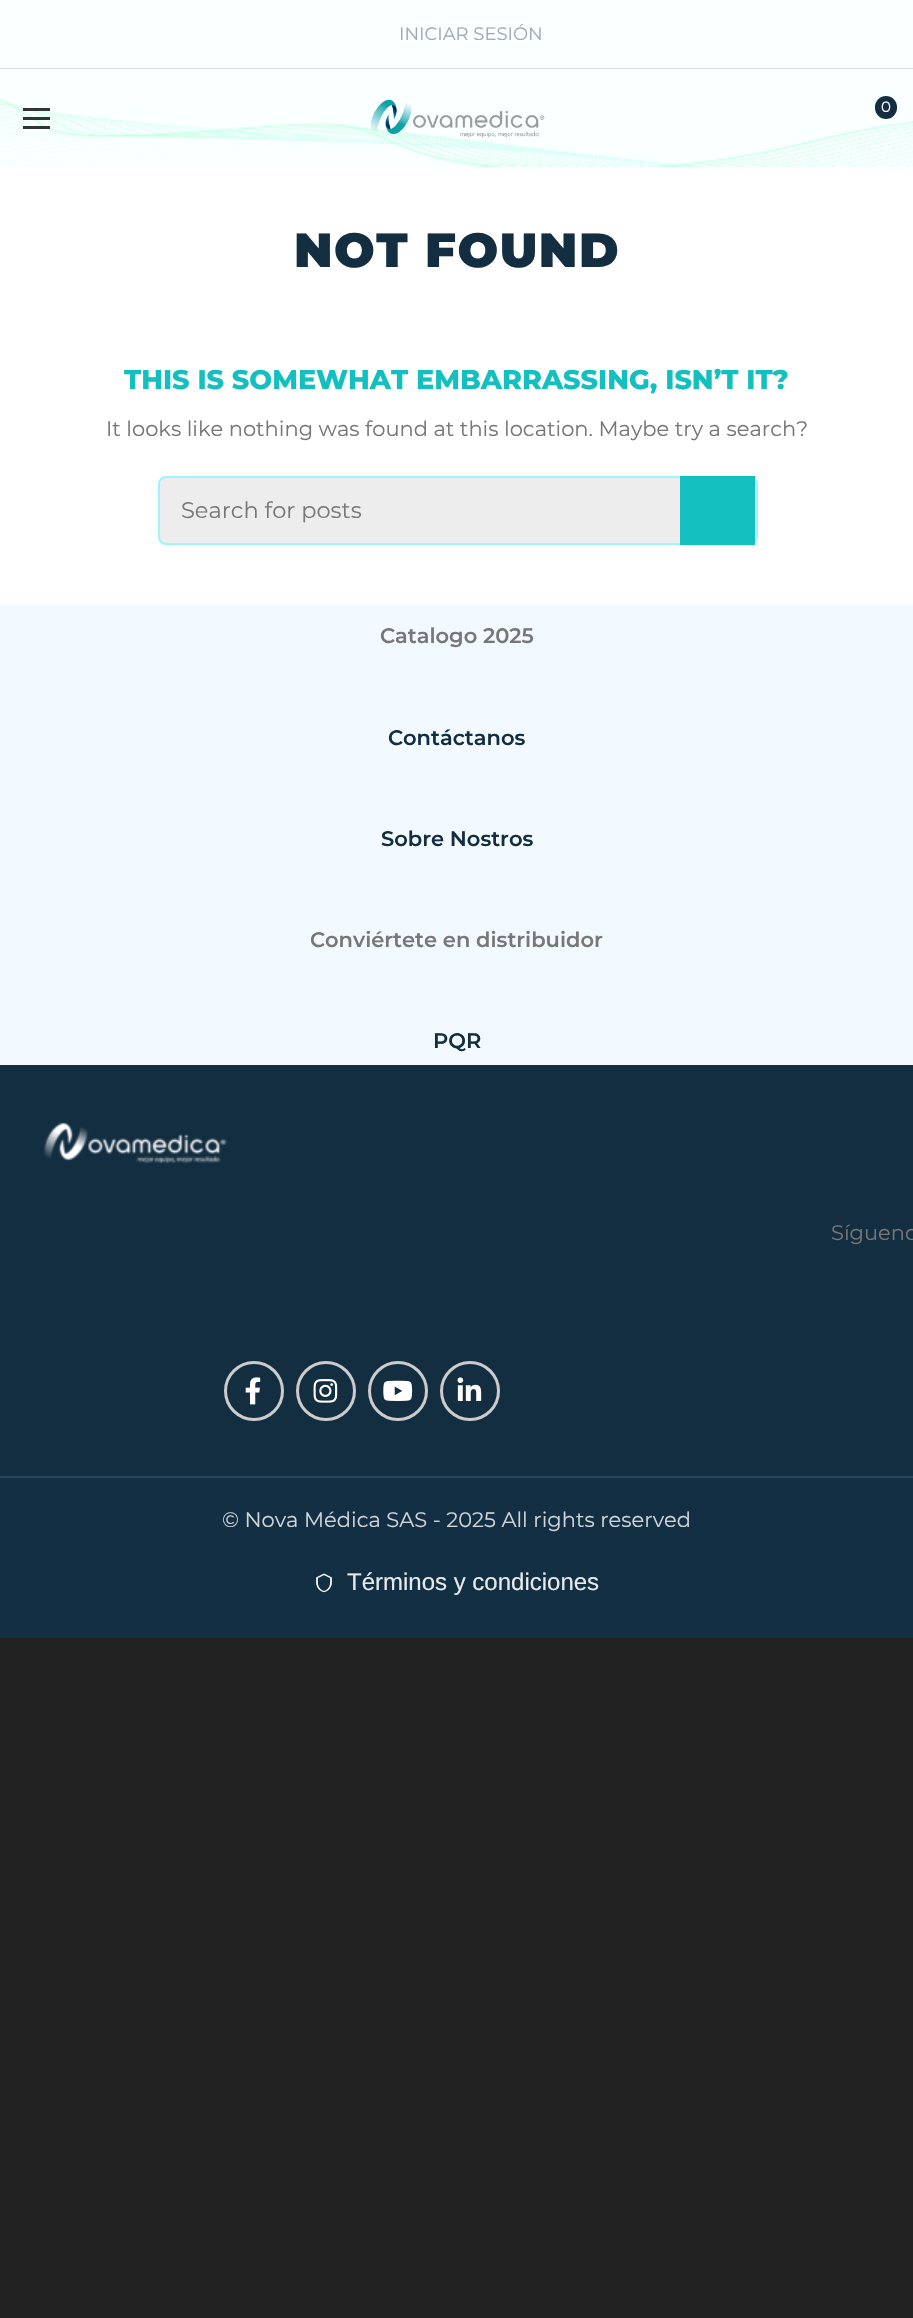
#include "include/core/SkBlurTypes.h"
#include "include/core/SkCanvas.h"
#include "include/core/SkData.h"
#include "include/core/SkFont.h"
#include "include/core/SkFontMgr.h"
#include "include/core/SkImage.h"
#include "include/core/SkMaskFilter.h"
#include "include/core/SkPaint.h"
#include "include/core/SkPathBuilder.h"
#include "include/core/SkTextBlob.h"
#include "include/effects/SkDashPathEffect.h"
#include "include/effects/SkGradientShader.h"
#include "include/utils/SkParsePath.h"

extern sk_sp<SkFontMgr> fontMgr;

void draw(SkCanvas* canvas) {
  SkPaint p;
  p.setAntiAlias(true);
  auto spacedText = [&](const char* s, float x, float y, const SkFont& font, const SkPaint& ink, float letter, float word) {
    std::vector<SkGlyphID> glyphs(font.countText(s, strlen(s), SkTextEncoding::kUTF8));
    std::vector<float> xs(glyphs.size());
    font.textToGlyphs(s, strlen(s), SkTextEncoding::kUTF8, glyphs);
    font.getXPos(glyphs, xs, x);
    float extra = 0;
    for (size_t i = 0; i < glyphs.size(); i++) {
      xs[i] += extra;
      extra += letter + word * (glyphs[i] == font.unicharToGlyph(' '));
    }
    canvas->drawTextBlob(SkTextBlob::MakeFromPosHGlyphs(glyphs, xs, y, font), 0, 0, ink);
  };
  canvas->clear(SkColorSetRGB(34, 34, 34));
  p.setColor(SK_ColorWHITE);
  canvas->drawRect(SkRect::MakeLTRB(0, 167, 913, 605), p);
  p.setColor(SkColorSetRGB(250, 255, 255));
  canvas->drawRect(SkRect::MakeLTRB(0, 0, 913, 68), p);
  p.setColor(SkColorSetRGB(221, 221, 221));
  canvas->drawRect(SkRect::MakeLTRB(0, 68, 913, 69), p);
  p.setColor(SkColorSetRGB(250, 255, 255));
  canvas->drawRect(SkRect::MakeLTRB(0, 69, 913, 167), p);
  canvas->drawImageRect(SkImages::DeferredFromEncodedData(SkData::MakeFromFileName("images/1.png")), SkRect::MakeLTRB(0, 98, 913, 167), SkSamplingOptions());
  p.setColor(SkColorSetRGB(51, 51, 51));
  canvas->drawRect(SkRect::MakeLTRB(23, 117, 50, 120), p);
  canvas->drawRect(SkRect::MakeLTRB(23, 108, 50, 111), p);
  canvas->drawRect(SkRect::MakeLTRB(23, 126, 50, 129), p);
  canvas->drawImageRect(SkImages::DeferredFromEncodedData(SkData::MakeFromFileName("images/2.png")), SkRect::MakeLTRB(370, 99, 545, 138), SkSamplingOptions());
  p.setColor(SkColorSetRGB(19, 46, 65));
  canvas->drawRoundRect(SkRect::MakeLTRB(875, 96, 897, 119), 11, 11, p);
  p.setColor(SkColorSetRGB(237, 237, 237));
  canvas->drawRoundRect(SkRect::MakeLTRB(159, 477, 757, 544), 7, 7, p);
  p.setStyle(SkPaint::kStroke_Style);
  p.setStrokeWidth(2);
  p.setColor(SkColorSetRGB(156, 244, 255));
  canvas->drawRoundRect(SkRect::MakeLTRB(159, 477, 757, 544), 7, 7, p);
  p.setStyle(SkPaint::kFill_Style);
  p.setColor(SkColorSetRGB(19, 191, 191));
  canvas->drawRect(SkRect::MakeLTRB(680, 476, 755, 545), p);
  p.setColor(SkColorSetRGB(242, 250, 255));
  canvas->drawRect(SkRect::MakeLTRB(0, 605, 913, 1065), p);
  p.setColor(SkColorSetRGB(19, 46, 65));
  canvas->drawRect(SkRect::MakeLTRB(0, 1065, 913, 1476), p);
  canvas->drawImageRect(SkImages::DeferredFromEncodedData(SkData::MakeFromFileName("images/3.png")), SkRect::MakeLTRB(43, 1122, 227, 1164), SkSamplingOptions());
  p.setStyle(SkPaint::kStroke_Style);
  p.setStrokeWidth(3);
  p.setColor(SkColorSetRGB(204, 204, 204));
  canvas->drawCircle(254, 1391, 28.5f, p);
  canvas->drawImageRect(SkImages::DeferredFromEncodedData(SkData::MakeFromFileName("images/4.png")), SkRect::MakeLTRB(245, 1377, 261, 1405), SkSamplingOptions());
  canvas->drawCircle(326, 1391, 28.5f, p);
  canvas->drawImageRect(SkImages::DeferredFromEncodedData(SkData::MakeFromFileName("images/5.png")), SkRect::MakeLTRB(313, 1379, 338, 1403), SkSamplingOptions());
  canvas->drawCircle(398, 1391, 28.5f, p);
  canvas->drawImageRect(SkImages::DeferredFromEncodedData(SkData::MakeFromFileName("images/6.png")), SkRect::MakeLTRB(383, 1380, 413, 1401), SkSamplingOptions());
  canvas->drawCircle(470, 1391, 28.5f, p);
  canvas->drawImageRect(SkImages::DeferredFromEncodedData(SkData::MakeFromFileName("images/7.png")), SkRect::MakeLTRB(457, 1377, 482, 1401), SkSamplingOptions());
  p.setStyle(SkPaint::kFill_Style);
  p.setColor(SkColorSetRGB(19, 47, 67));
  canvas->drawRect(SkRect::MakeLTRB(0, 1478, 913, 1638), p);
  p.setColor(SkColorSetRGB(43, 68, 86));
  canvas->drawRect(SkRect::MakeLTRB(0, 1476, 913, 1478), p);
  canvas->drawImageRect(SkImages::DeferredFromEncodedData(SkData::MakeFromFileName("images/8.png")), SkRect::MakeLTRB(316, 1573, 332, 1593), SkSamplingOptions());
  SkFont font1(fontMgr->matchFamilyStyle("Montserrat", SkFontStyle::Normal()), 18);
  font1.setSubpixel(true);
  p.setColor(SkColorSetRGB(159, 170, 177));
  canvas->drawString("INICIAR SESIÓN", 399, 40, font1, p);
  SkFont font2(fontMgr->matchFamilyStyle("Montserrat", SkFontStyle::Normal()), 15);
  font2.setSubpixel(true);
  p.setColor(SK_ColorWHITE);
  canvas->drawString("0", 881, 112, font2, p);
  SkFont font3(fontMgr->matchFamilyStyle("Montserrat", SkFontStyle(900, SkFontStyle::kNormal_Width, SkFontStyle::kUpright_Slant)), 48);
  font3.setSubpixel(true);
  p.setColor(SkColorSetRGB(19, 46, 65));
  spacedText("NOT FOUND", 294, 267, font3, p, 1.5f, 0);
  SkFont font4(fontMgr->matchFamilyStyle("Montserrat", SkFontStyle(800, SkFontStyle::kNormal_Width, SkFontStyle::kUpright_Slant)), 27);
  font4.setSubpixel(true);
  p.setColor(SkColorSetRGB(19, 191, 191));
  canvas->drawString("THIS IS SOMEWHAT EMBARRASSING, ISN’T IT?", 124, 389, font4, p);
  SkFont font5(fontMgr->matchFamilyStyle("Montserrat", SkFontStyle::Normal()), 21);
  font5.setSubpixel(true);
  p.setColor(SkColorSetRGB(119, 119, 119));
  canvas->drawString("It looks like nothing was found at this location. Maybe try a search?", 106, 436, font5, p);
  SkFont font6(fontMgr->matchFamilyStyle("Montserrat", SkFontStyle::Normal()), 22.5f);
  font6.setSubpixel(true);
  canvas->drawString("Search for posts", 181, 518, font6, p);
  SkFont font7(fontMgr->matchFamilyStyle("Montserrat", SkFontStyle(600, SkFontStyle::kNormal_Width, SkFontStyle::kUpright_Slant)), 21);
  font7.setSubpixel(true);
  canvas->drawString("Catalogo 2025", 380, 643, font7, p);
  p.setColor(SkColorSetRGB(19, 46, 65));
  canvas->drawString("Contáctanos", 388, 745, font7, p);
  canvas->drawString("Sobre Nostros", 381, 846, font7, p);
  p.setColor(SkColorSetRGB(119, 119, 119));
  canvas->drawString("Conviértete en distribuidor", 310, 947, font7, p);
  p.setColor(SkColorSetRGB(19, 46, 65));
  canvas->drawString("PQR", 433, 1048, font7, p);
  p.setColor(SkColorSetRGB(119, 119, 119));
  canvas->drawString("Sígueno", 831, 1240, font5, p);
  p.setColor(SkColorSetRGB(208, 213, 217));
  canvas->drawString("© Nova Médica SAS - 2025 All rights reserved", 222, 1527, font5, p);
  SkFont font8(fontMgr->matchFamilyStyle("Liberation Sans", SkFontStyle::Normal()), 24);
  font8.setSubpixel(true);
  p.setColor(SkColorSetRGB(231, 234, 236));
  canvas->drawString("Términos y condiciones", 347, 1590, font8, p);
}
